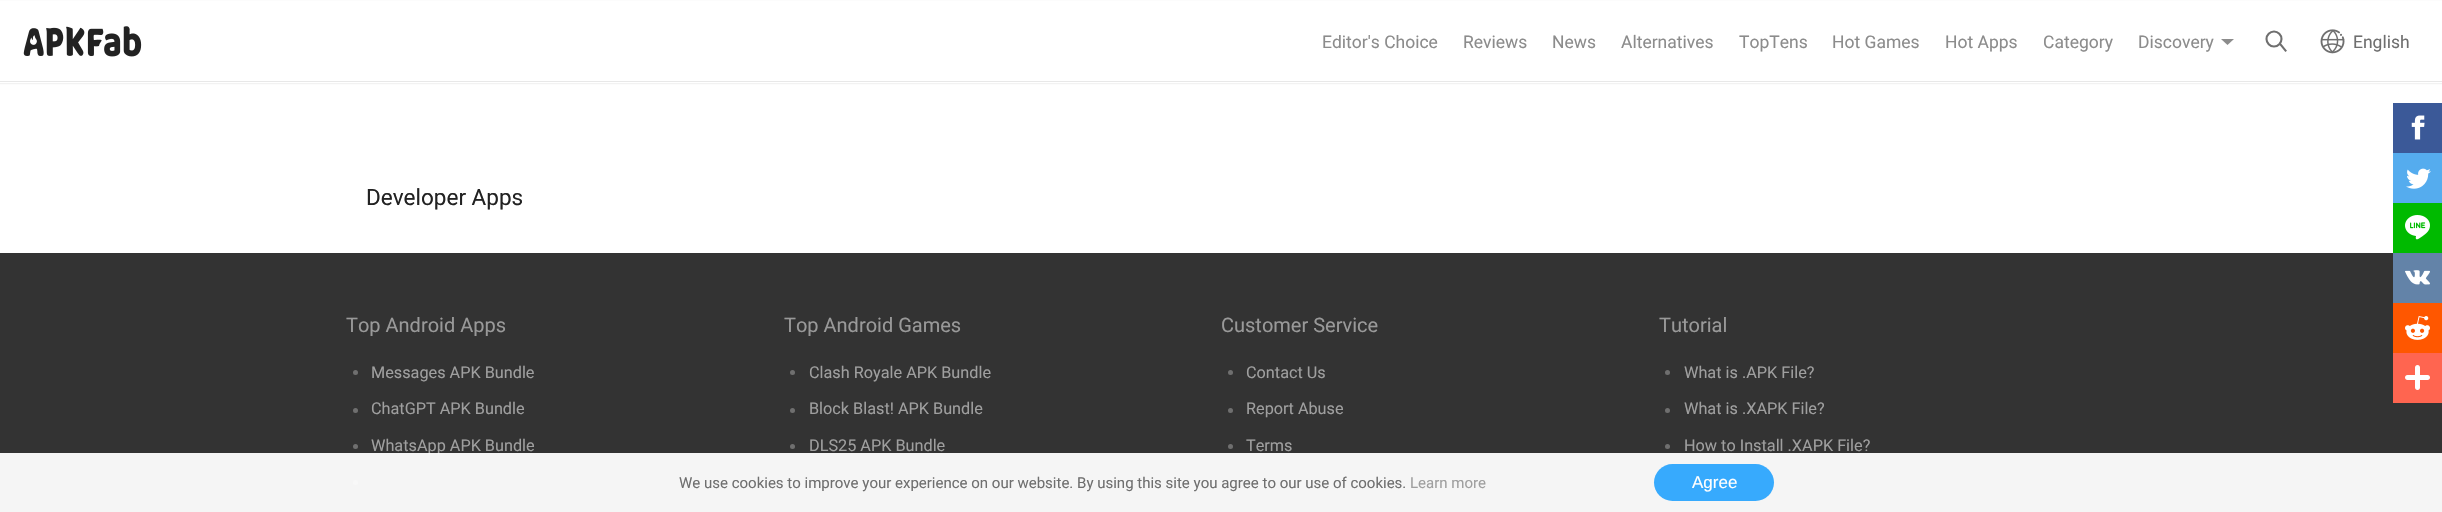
#include "include/core/SkBlurTypes.h"
#include "include/core/SkCanvas.h"
#include "include/core/SkData.h"
#include "include/core/SkFont.h"
#include "include/core/SkFontMgr.h"
#include "include/core/SkImage.h"
#include "include/core/SkMaskFilter.h"
#include "include/core/SkPaint.h"
#include "include/core/SkPathBuilder.h"
#include "include/core/SkTextBlob.h"
#include "include/effects/SkDashPathEffect.h"
#include "include/effects/SkGradientShader.h"
#include "include/utils/SkParsePath.h"

extern sk_sp<SkFontMgr> fontMgr;

void draw(SkCanvas* canvas) {
  SkPaint p;
  p.setAntiAlias(true);
  canvas->clear(SK_ColorWHITE);
  p.setColor(SkColorSetARGB(13, 0, 0, 0));
  p.setMaskFilter(SkMaskFilter::MakeBlur(kNormal_SkBlurStyle, 0.5f));
  canvas->drawRect(SkRect::MakeLTRB(0, 1, 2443, 84), p);
  p.setMaskFilter(nullptr);
  p.setColor(SK_ColorWHITE);
  canvas->drawRect(SkRect::MakeLTRB(0, 1, 2442, 83), p);
  p.setColor(SkColorSetRGB(232, 232, 232));
  canvas->drawRect(SkRect::MakeLTRB(0, 81, 2442, 82), p);
  canvas->drawImageRect(SkImages::DeferredFromEncodedData(SkData::MakeFromFileName("images/1.png")), SkRect::MakeLTRB(23, 26, 142, 57), SkSamplingOptions());
  p.setColor(SkColorSetRGB(140, 140, 140));
  canvas->drawPath(SkPathBuilder().moveTo(2221, 39).lineTo(2234, 39).lineTo(2227.5f, 45).close().detach(), p);
  p.setStyle(SkPaint::kStroke_Style);
  p.setStrokeWidth(2.1f);
  p.setColor(SkColorSetRGB(111, 111, 111));
  canvas->drawCircle(2274, 39, 7.5f, p);
  p.setStrokeCap(SkPaint::kSquare_Cap);
  canvas->drawPath(SkPathBuilder().moveTo(2280.5f, 44.5f).lineTo(2285.5f, 50.5f).detach(), p);
  canvas->drawImageRect(SkImages::DeferredFromEncodedData(SkData::MakeFromFileName("images/2.png")), SkRect::MakeLTRB(2320, 29, 2345, 54), SkSamplingOptions());
  p.setStyle(SkPaint::kFill_Style);
  p.setColor(SkColorSetRGB(51, 51, 51));
  canvas->drawRect(SkRect::MakeLTRB(0, 253, 2442, 512), p);
  p.setColor(SkColorSetRGB(111, 111, 111));
  canvas->drawCircle(355.5f, 372.5f, 2.5f, p);
  canvas->drawCircle(355.5f, 410.5f, 2.5f, p);
  canvas->drawCircle(355.5f, 446.5f, 2.5f, p);
  canvas->drawCircle(355.5f, 482.5f, 2.5f, p);
  canvas->drawCircle(792.5f, 372.5f, 2.5f, p);
  canvas->drawCircle(792.5f, 410.5f, 2.5f, p);
  canvas->drawCircle(792.5f, 446.5f, 2.5f, p);
  canvas->drawCircle(792.5f, 482.5f, 2.5f, p);
  canvas->drawCircle(1230.5f, 372.5f, 2.5f, p);
  canvas->drawCircle(1230.5f, 410.5f, 2.5f, p);
  canvas->drawCircle(1230.5f, 446.5f, 2.5f, p);
  canvas->drawCircle(1230.5f, 482.5f, 2.5f, p);
  canvas->drawCircle(1667.5f, 372.5f, 2.5f, p);
  canvas->drawCircle(1667.5f, 410.5f, 2.5f, p);
  canvas->drawCircle(1667.5f, 446.5f, 2.5f, p);
  p.setColor(SkColorSetRGB(59, 89, 152));
  canvas->drawRect(SkRect::MakeLTRB(2393, 103, 2442, 153), p);
  canvas->drawImageRect(SkImages::DeferredFromEncodedData(SkData::MakeFromFileName("images/3.png")), SkRect::MakeLTRB(2411, 115, 2425, 140), SkSamplingOptions());
  p.setColor(SkColorSetRGB(85, 172, 238));
  canvas->drawRect(SkRect::MakeLTRB(2393, 153, 2442, 203), p);
  canvas->drawImageRect(SkImages::DeferredFromEncodedData(SkData::MakeFromFileName("images/4.png")), SkRect::MakeLTRB(2406, 168, 2431, 189), SkSamplingOptions());
  p.setColor(SkColorSetRGB(0, 186, 0));
  canvas->drawRect(SkRect::MakeLTRB(2393, 203, 2442, 253), p);
  canvas->drawImageRect(SkImages::DeferredFromEncodedData(SkData::MakeFromFileName("images/5.png")), SkRect::MakeLTRB(2405, 215, 2430, 240), SkSamplingOptions());
  p.setColor(SkColorSetRGB(99, 131, 168));
  canvas->drawRect(SkRect::MakeLTRB(2393, 253, 2442, 303), p);
  canvas->drawImageRect(SkImages::DeferredFromEncodedData(SkData::MakeFromFileName("images/6.png")), SkRect::MakeLTRB(2405, 270, 2430, 285), SkSamplingOptions());
  p.setColor(SkColorSetRGB(255, 87, 0));
  canvas->drawRect(SkRect::MakeLTRB(2393, 303, 2442, 353), p);
  canvas->drawImageRect(SkImages::DeferredFromEncodedData(SkData::MakeFromFileName("images/7.png")), SkRect::MakeLTRB(2405, 316, 2430, 340), SkSamplingOptions());
  p.setColor(SkColorSetRGB(255, 101, 80));
  canvas->drawRect(SkRect::MakeLTRB(2393, 353, 2442, 403), p);
  canvas->drawImageRect(SkImages::DeferredFromEncodedData(SkData::MakeFromFileName("images/8.png")), SkRect::MakeLTRB(2405, 365, 2430, 390), SkSamplingOptions());
  SkFont font1(fontMgr->matchFamilyStyle("Roboto", SkFontStyle::Normal()), 17.5f);
  font1.setSubpixel(true);
  p.setColor(SkColorSetRGB(140, 140, 140));
  canvas->drawString("Editor's Choice", 1322, 48, font1, p);
  canvas->drawString("Reviews", 1463, 48, font1, p);
  canvas->drawString("News", 1552, 48, font1, p);
  canvas->drawString("Alternatives", 1621, 48, font1, p);
  canvas->drawString("TopTens", 1739, 48, font1, p);
  canvas->drawString("Hot Games", 1832, 48, font1, p);
  canvas->drawString("Hot Apps", 1945, 48, font1, p);
  canvas->drawString("Category", 2043, 48, font1, p);
  canvas->drawString("Discovery", 2138, 48, font1, p);
  p.setColor(SkColorSetRGB(111, 111, 111));
  canvas->drawString("English", 2353, 48, font1, p);
  SkFont font2(fontMgr->matchFamilyStyle("Roboto", SkFontStyle::Normal()), 22.5f);
  font2.setSubpixel(true);
  p.setColor(SkColorSetRGB(34, 34, 34));
  canvas->drawString("Developer Apps", 366, 205, font2, p);
  SkFont font3(fontMgr->matchFamilyStyle("Roboto", SkFontStyle::Normal()), 20);
  font3.setSubpixel(true);
  p.setColor(SkColorSetRGB(153, 153, 153));
  canvas->drawString("Top Android Apps", 346, 332, font3, p);
  SkFont font4(fontMgr->matchFamilyStyle("Roboto", SkFontStyle::Normal()), 16.25f);
  font4.setSubpixel(true);
  p.setColor(SkColorSetRGB(159, 159, 159));
  canvas->drawString("Messages APK Bundle", 371, 378, font4, p);
  canvas->drawString("ChatGPT APK Bundle", 371, 414, font4, p);
  canvas->drawString("WhatsApp APK Bundle", 371, 451, font4, p);
  p.setColor(SkColorSetRGB(153, 153, 153));
  canvas->drawString("Top Android Games", 784, 332, font3, p);
  p.setColor(SkColorSetRGB(159, 159, 159));
  canvas->drawString("Clash Royale APK Bundle", 809, 378, font4, p);
  canvas->drawString("Block Blast! APK Bundle", 809, 414, font4, p);
  canvas->drawString("DLS25 APK Bundle", 809, 451, font4, p);
  p.setColor(SkColorSetRGB(153, 153, 153));
  canvas->drawString("Customer Service", 1221, 332, font3, p);
  p.setColor(SkColorSetRGB(159, 159, 159));
  canvas->drawString("Contact Us", 1246, 378, font4, p);
  canvas->drawString("Report Abuse", 1246, 414, font4, p);
  canvas->drawString("Terms", 1246, 451, font4, p);
  p.setColor(SkColorSetRGB(153, 153, 153));
  canvas->drawString("Tutorial", 1659, 332, font3, p);
  p.setColor(SkColorSetRGB(159, 159, 159));
  canvas->drawString("What is .APK File?", 1684, 378, font4, p);
  canvas->drawString("What is .XAPK File?", 1684, 414, font4, p);
  canvas->drawString("How to Install .XAPK File?", 1684, 451, font4, p);
  p.setColor(SkColorSetARGB(242, 255, 255, 255));
  canvas->drawRect(SkRect::MakeLTRB(0, 453, 2442, 512), p);
  SkFont font5(fontMgr->matchFamilyStyle("Roboto", SkFontStyle::Normal()), 15);
  font5.setSubpixel(true);
  p.setColor(SkColorSetRGB(111, 111, 111));
  canvas->drawString("We use cookies to improve your experience on our website. By using this site you agree to our use of cookies.", 679, 488, font5, p);
  p.setColor(SkColorSetRGB(159, 159, 159));
  canvas->drawString("Learn more", 1410, 488, font5, p);
  p.setColor(SkColorSetRGB(55, 170, 253));
  canvas->drawRoundRect(SkRect::MakeLTRB(1654, 464, 1774, 501), 18.5f, 18.5f, p);
  SkFont font6(fontMgr->matchFamilyStyle("Liberation Sans", SkFontStyle::Normal()), 17);
  font6.setSubpixel(true);
  p.setColor(SK_ColorWHITE);
  canvas->drawString("Agree", 1692, 488, font6, p);
}
